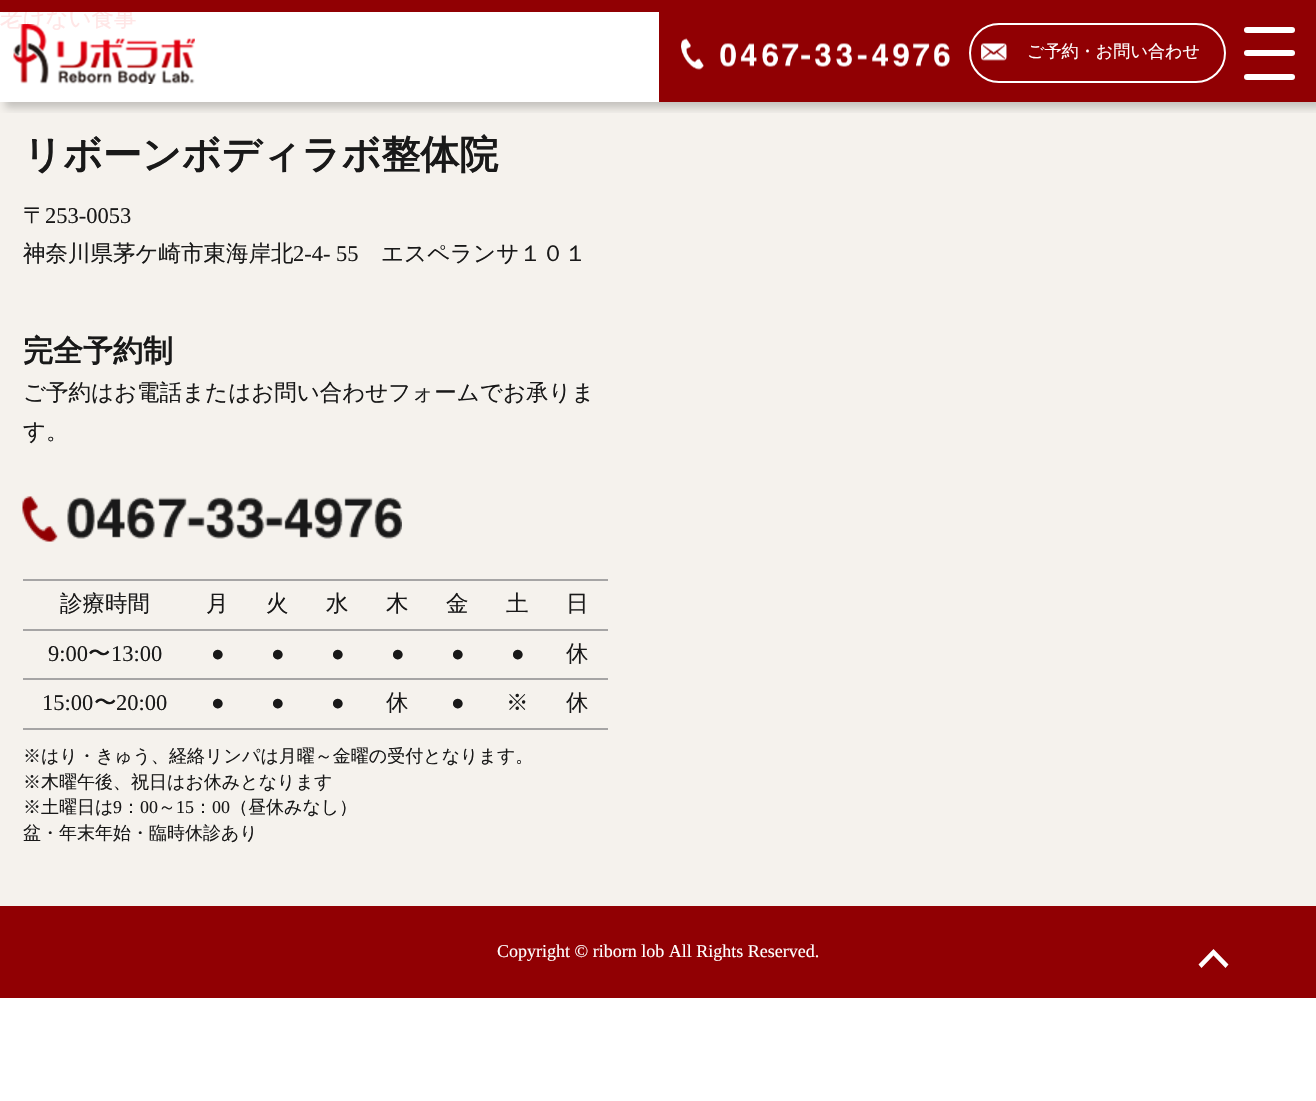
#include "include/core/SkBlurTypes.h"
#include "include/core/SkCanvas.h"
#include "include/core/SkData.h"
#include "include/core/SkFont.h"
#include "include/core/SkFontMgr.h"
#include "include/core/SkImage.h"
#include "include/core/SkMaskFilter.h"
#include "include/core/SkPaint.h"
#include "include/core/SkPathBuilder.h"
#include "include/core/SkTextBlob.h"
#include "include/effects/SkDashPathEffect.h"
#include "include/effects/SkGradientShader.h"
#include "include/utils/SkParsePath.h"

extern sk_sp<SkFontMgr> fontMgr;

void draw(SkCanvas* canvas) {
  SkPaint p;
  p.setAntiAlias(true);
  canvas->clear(SK_ColorWHITE);
  p.setColor(SkColorSetRGB(245, 242, 237));
  canvas->drawRect(SkRect::MakeLTRB(0, 102, 1316, 906), p);
  canvas->save();
  canvas->clipRect(SkRect::MakeLTRB(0, 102, 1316, 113));
  p.setColor(SkColorSetARGB(51, 0, 0, 0));
  p.setMaskFilter(SkMaskFilter::MakeBlur(kNormal_SkBlurStyle, 4));
  canvas->drawRect(SkRect::MakeLTRB(5, 6, 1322, 108), p);
  p.setMaskFilter(nullptr);
  canvas->restore();
  p.setColor(SkColorSetRGB(145, 0, 3));
  canvas->drawRect(SkRect::MakeLTRB(659, 12, 1316, 102), p);
  canvas->drawImageRect(SkImages::DeferredFromEncodedData(SkData::MakeFromFileName("images/2.png")), SkRect::MakeLTRB(681, 38, 950, 70), SkSamplingOptions());
  canvas->drawImageRect(SkImages::DeferredFromEncodedData(SkData::MakeFromFileName("images/3.png")), SkRect::MakeLTRB(981, 43, 1007, 61), SkSamplingOptions());
  p.setStyle(SkPaint::kStroke_Style);
  p.setStrokeWidth(2);
  p.setColor(SK_ColorWHITE);
  canvas->drawRoundRect(SkRect::MakeLTRB(970, 24, 1225, 82), 29, 29, p);
  p.setStyle(SkPaint::kFill_Style);
  canvas->drawRoundRect(SkRect::MakeLTRB(1244, 27, 1295, 33), 3, 3, p);
  canvas->drawRoundRect(SkRect::MakeLTRB(1244, 50, 1295, 56), 3, 3, p);
  canvas->drawRoundRect(SkRect::MakeLTRB(1244, 74, 1295, 80), 3, 3, p);
  canvas->drawImageRect(SkImages::DeferredFromEncodedData(SkData::MakeFromFileName("images/4.png")), SkRect::MakeLTRB(22, 496, 402, 542), SkSamplingOptions());
  p.setColor(SkColorSetRGB(166, 165, 165));
  canvas->drawRect(SkRect::MakeLTRB(23, 579, 608, 581), p);
  canvas->drawRect(SkRect::MakeLTRB(23, 629, 608, 631), p);
  canvas->drawRect(SkRect::MakeLTRB(23, 678, 608, 680), p);
  canvas->drawRect(SkRect::MakeLTRB(23, 728, 608, 730), p);
  p.setColor(SkColorSetRGB(145, 0, 3));
  canvas->drawRect(SkRect::MakeLTRB(0, 906, 1316, 998), p);
  p.setColor(SK_ColorWHITE);
  canvas->drawPath(SkPathBuilder(SkPathFillType::kEvenOdd).moveTo(1225.5f, 968).lineTo(1213.5f, 955.5f).lineTo(1201.5f, 968).lineTo(1198.5f, 964.5f).lineTo(1213.5f, 949).lineTo(1228.5f, 964.5f).close().detach(), p);
  SkFont font1(fontMgr->matchFamilyStyle("WenQuanYi Zen Hei", SkFontStyle(500, SkFontStyle::kNormal_Width, SkFontStyle::kUpright_Slant)), 22.5f);
  font1.setSubpixel(true);
  p.setColor(SkColorSetRGB(255, 230, 230));
  canvas->drawString("老けない食事", 0, 26, font1, p);
  p.setColor(SkColorSetRGB(145, 0, 3));
  canvas->drawRect(SkRect::MakeLTRB(0, 0, 1316, 12), p);
  canvas->drawImageRect(SkImages::DeferredFromEncodedData(SkData::MakeFromFileName("images/1.png")), SkRect::MakeLTRB(13, 24, 195, 84), SkSamplingOptions());
  SkFont font2(fontMgr->matchFamilyStyle("WenQuanYi Zen Hei", SkFontStyle(500, SkFontStyle::kNormal_Width, SkFontStyle::kUpright_Slant)), 17.1f);
  font2.setSubpixel(true);
  p.setColor(SK_ColorWHITE);
  canvas->drawString("ご予約・お問い合わせ", 1027, 57, font2, p);
  SkFont font3(fontMgr->matchFamilyStyle("WenQuanYi Zen Hei", SkFontStyle::Bold()), 39);
  font3.setSubpixel(true);
  p.setColor(SkColorSetRGB(25, 25, 25));
  canvas->drawString("リボーンボディラボ整体院", 23, 168, font3, p);
  canvas->drawString("〒", 23, 223, font1, p);
  SkFont font4(fontMgr->matchFamilyStyle("Liberation Serif", SkFontStyle::Normal()), 22.5f);
  font4.setSubpixel(true);
  canvas->drawString("253-0053", 45, 223, font4, p);
  canvas->drawString("神奈川県茅ケ崎市東海岸北", 23, 261, font1, p);
  canvas->drawString("2-4- 55", 293, 261, font4, p);
  canvas->drawString("エスペランサ１０１", 381, 261, font1, p);
  SkFont font5(fontMgr->matchFamilyStyle("WenQuanYi Zen Hei", SkFontStyle::Bold()), 30);
  font5.setSubpixel(true);
  canvas->drawString("完全予約制", 23, 361, font5, p);
  canvas->drawString("ご予約はお電話またはお問い合わせフォームでお承りま", 23, 400, font1, p);
  canvas->drawString("す。", 23, 439, font1, p);
  canvas->drawString("診療時間", 60, 611, font1, p);
  canvas->drawString("月", 206, 611, font1, p);
  canvas->drawString("火", 266, 611, font1, p);
  canvas->drawString("水", 326, 611, font1, p);
  canvas->drawString("木", 386, 611, font1, p);
  canvas->drawString("金", 446, 611, font1, p);
  canvas->drawString("土", 506, 611, font1, p);
  canvas->drawString("日", 566, 611, font1, p);
  canvas->drawString("9:00", 48, 661, font4, p);
  canvas->drawString("〜", 88, 661, font1, p);
  canvas->drawString("13:00", 111, 661, font4, p);
  canvas->drawString("●", 211, 661, font4, p);
  canvas->drawString("●", 271, 661, font4, p);
  canvas->drawString("●", 331, 661, font4, p);
  canvas->drawString("●", 391, 661, font4, p);
  canvas->drawString("●", 451, 661, font4, p);
  canvas->drawString("●", 511, 661, font4, p);
  canvas->drawString("休", 566, 661, font1, p);
  canvas->drawString("15:00", 42, 710, font4, p);
  canvas->drawString("〜", 94, 710, font1, p);
  canvas->drawString("20:00", 116, 710, font4, p);
  canvas->drawString("●", 211, 710, font4, p);
  canvas->drawString("●", 271, 710, font4, p);
  canvas->drawString("●", 331, 710, font4, p);
  canvas->drawString("休", 386, 710, font1, p);
  canvas->drawString("●", 451, 710, font4, p);
  canvas->drawString("※", 506, 710, font1, p);
  canvas->drawString("休", 566, 710, font1, p);
  SkFont font6(fontMgr->matchFamilyStyle("WenQuanYi Zen Hei", SkFontStyle(500, SkFontStyle::kNormal_Width, SkFontStyle::kUpright_Slant)), 18);
  font6.setSubpixel(true);
  canvas->drawString("※はり・きゅう、経絡リンパは月曜～金曜の受付となります。", 23, 762, font6, p);
  canvas->drawString("※木曜午後、祝日はお休みとなります", 23, 788, font6, p);
  canvas->drawString("※土曜日は", 23, 813, font6, p);
  SkFont font7(fontMgr->matchFamilyStyle("Liberation Serif", SkFontStyle::Normal()), 18);
  font7.setSubpixel(true);
  canvas->drawString("9", 113, 813, font7, p);
  canvas->drawString("：", 122, 813, font6, p);
  canvas->drawString("00", 140, 813, font7, p);
  canvas->drawString("～", 158, 813, font6, p);
  canvas->drawString("15", 176, 813, font7, p);
  canvas->drawString("：", 194, 813, font6, p);
  canvas->drawString("00", 212, 813, font7, p);
  canvas->drawString("（昼休みなし）", 230, 813, font6, p);
  canvas->drawString("盆・年末年始・臨時休診あり", 23, 839, font6, p);
  p.setColor(SK_ColorWHITE);
  canvas->drawString("Copyright © riborn lob All Rights Reserved.", 497, 957, font7, p);
}
